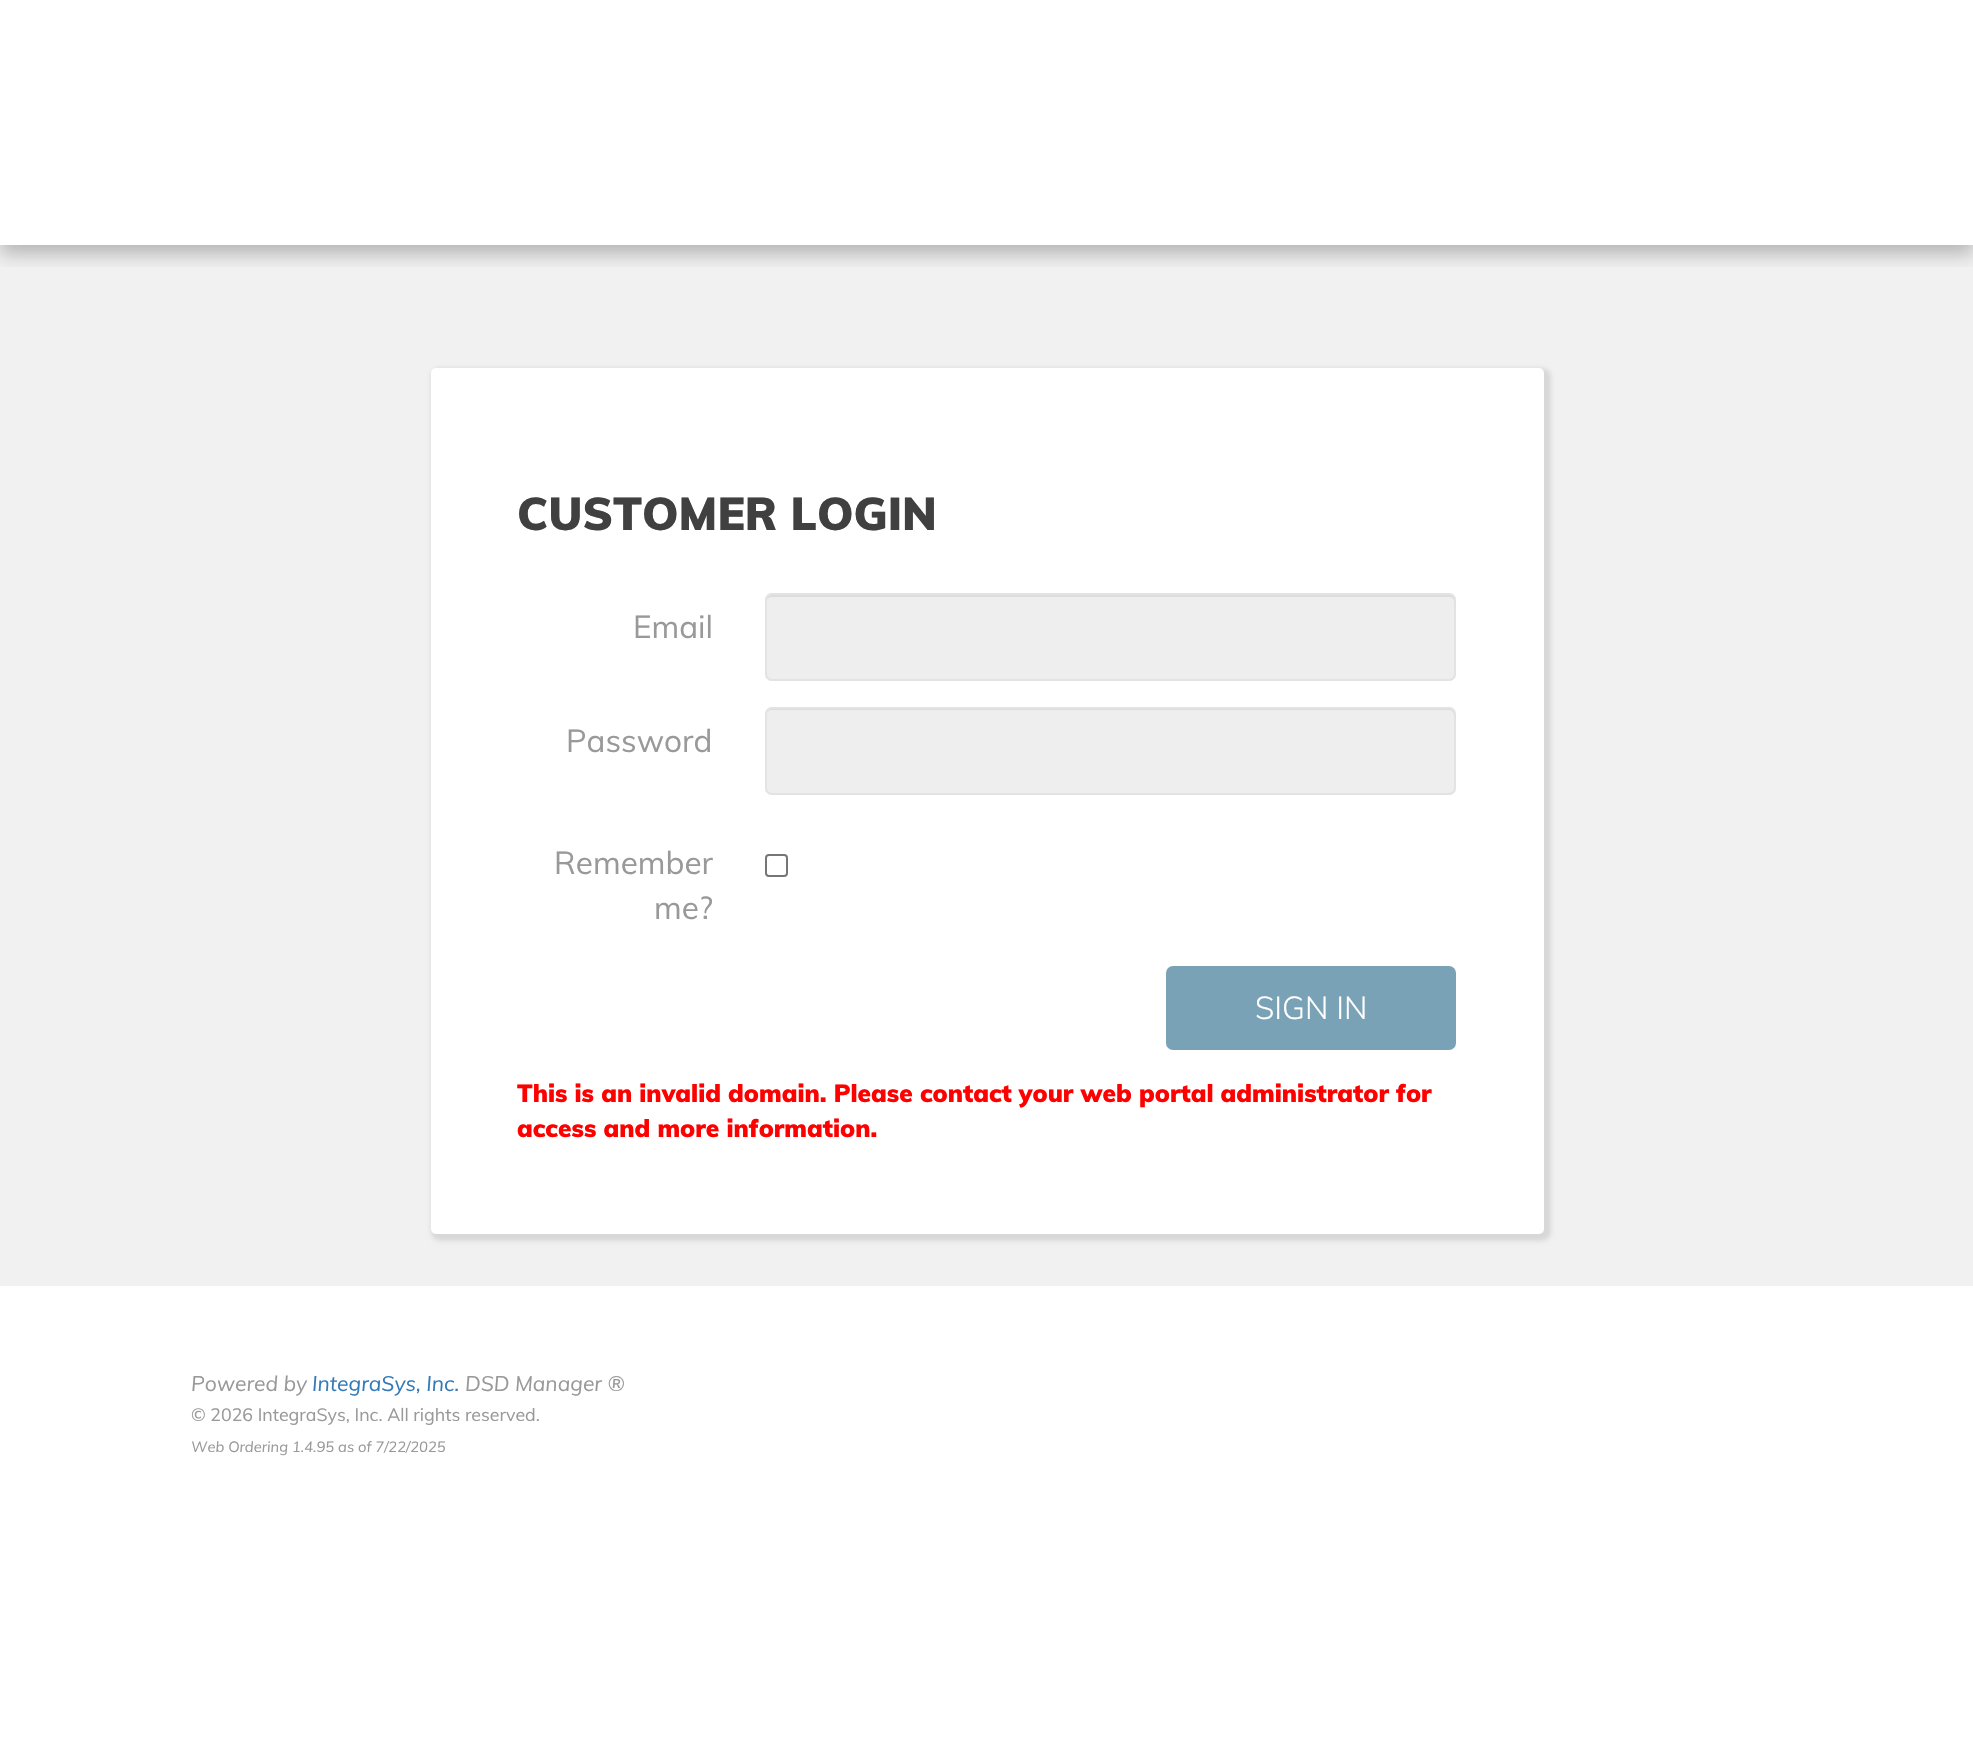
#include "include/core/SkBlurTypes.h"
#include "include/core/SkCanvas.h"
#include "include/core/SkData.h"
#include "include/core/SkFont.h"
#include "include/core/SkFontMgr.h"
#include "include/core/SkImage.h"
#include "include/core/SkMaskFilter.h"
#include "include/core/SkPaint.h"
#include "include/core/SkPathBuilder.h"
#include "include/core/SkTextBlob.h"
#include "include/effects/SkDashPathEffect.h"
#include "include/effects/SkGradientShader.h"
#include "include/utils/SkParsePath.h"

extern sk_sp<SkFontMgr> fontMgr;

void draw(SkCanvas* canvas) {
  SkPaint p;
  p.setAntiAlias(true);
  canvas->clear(SK_ColorWHITE);
  p.setColor(SkColorSetRGB(241, 241, 241));
  canvas->drawRect(SkRect::MakeLTRB(0, 245, 1973, 1286), p);
  canvas->save();
  canvas->clipRect(SkRect::MakeLTRB(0, 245, 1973, 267));
  p.setColor(SkColorSetARGB(64, 0, 0, 0));
  p.setMaskFilter(SkMaskFilter::MakeBlur(kNormal_SkBlurStyle, 9));
  canvas->drawRect(SkRect::MakeLTRB(0, 9, 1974, 254), p);
  p.setMaskFilter(nullptr);
  canvas->restore();
  p.setColor(SkColorSetARGB(26, 0, 0, 0));
  p.setMaskFilter(SkMaskFilter::MakeBlur(kNormal_SkBlurStyle, 2));
  canvas->drawRoundRect(SkRect::MakeLTRB(431, 368, 1551, 1241), 9, 9, p);
  p.setMaskFilter(nullptr);
  p.setColor(SK_ColorWHITE);
  canvas->drawRoundRect(SkRect::MakeLTRB(431, 368, 1544, 1234), 5, 5, p);
  p.setColor(SkColorSetRGB(238, 238, 238));
  canvas->drawRoundRect(SkRect::MakeLTRB(765, 593, 1456, 681), 7, 7, p);
  p.setColor(SkColorSetRGB(220, 220, 220));
  canvas->drawPath(SkPathBuilder().moveTo(772, 597).lineTo(1449, 597).cubicTo(1452, 597, 1454, 599, 1454, 602).lineTo(1454, 600).cubicTo(1454, 597, 1452, 595, 1449, 595).lineTo(772, 595).cubicTo(770, 595, 767, 597, 767, 599).cubicTo(768, 598, 770, 597, 772, 597).close().detach(), p);
  p.setStyle(SkPaint::kStroke_Style);
  p.setStrokeWidth(2);
  p.setColor(SkColorSetRGB(227, 227, 227));
  canvas->drawRoundRect(SkRect::MakeLTRB(766, 594, 1455, 680), 6, 6, p);
  p.setStyle(SkPaint::kFill_Style);
  p.setColor(SkColorSetRGB(238, 238, 238));
  canvas->drawRoundRect(SkRect::MakeLTRB(765, 707, 1456, 795), 7, 7, p);
  p.setColor(SkColorSetRGB(220, 220, 220));
  canvas->drawPath(SkPathBuilder().moveTo(772, 710).lineTo(1449, 710).cubicTo(1452, 710, 1454, 713, 1454, 716).lineTo(1454, 714).cubicTo(1454, 711, 1452, 709, 1449, 709).lineTo(772, 709).cubicTo(770, 709, 768, 711, 767, 713).cubicTo(768, 711, 770, 710, 772, 710).close().detach(), p);
  p.setStyle(SkPaint::kStroke_Style);
  p.setColor(SkColorSetRGB(227, 227, 227));
  canvas->drawRoundRect(SkRect::MakeLTRB(766, 708, 1455, 794), 6, 6, p);
  p.setColor(SkColorSetRGB(118, 118, 118));
  canvas->drawRoundRect(SkRect::MakeLTRB(766, 855, 787, 876), 3, 3, p);
  p.setStyle(SkPaint::kFill_Style);
  p.setColor(SkColorSetRGB(121, 162, 182));
  canvas->drawRoundRect(SkRect::MakeLTRB(1167, 967, 1455, 1049), 6, 6, p);
  p.setStyle(SkPaint::kStroke_Style);
  canvas->drawRoundRect(SkRect::MakeLTRB(1167, 967, 1455, 1049), 6, 6, p);
  SkFont font1(fontMgr->matchFamilyStyle("Muli", SkFontStyle(900, SkFontStyle::kNormal_Width, SkFontStyle::kUpright_Slant)), 45.5f);
  font1.setSubpixel(true);
  p.setStyle(SkPaint::kFill_Style);
  p.setColor(SkColorSetRGB(64, 64, 64));
  canvas->drawString("CUSTOMER LOGIN", 517, 530, font1, p);
  SkFont font2(fontMgr->matchFamilyStyle("Muli", SkFontStyle::Normal()), 31.5f);
  font2.setSubpixel(true);
  p.setColor(SkColorSetRGB(153, 153, 153));
  canvas->drawString("Email", 633, 638, font2, p);
  canvas->drawString("Password", 566, 752, font2, p);
  canvas->drawString("Remember", 554, 874, font2, p);
  canvas->drawString("me?", 654, 919, font2, p);
  SkFont font3(fontMgr->matchFamilyStyle("Muli", SkFontStyle(300, SkFontStyle::kNormal_Width, SkFontStyle::kUpright_Slant)), 31.5f);
  font3.setSubpixel(true);
  p.setColor(SK_ColorWHITE);
  canvas->drawString("SIGN IN", 1255, 1019, font3, p);
  SkFont font4(fontMgr->matchFamilyStyle("Muli", SkFontStyle(900, SkFontStyle::kNormal_Width, SkFontStyle::kUpright_Slant)), 24.5f);
  font4.setSubpixel(true);
  p.setColor(SkColorSetRGB(255, 0, 0));
  canvas->drawString("This is an invalid domain. Please contact your web portal administrator for", 517, 1102, font4, p);
  canvas->drawString("access and more information.", 517, 1137, font4, p);
  SkFont font5(fontMgr->matchFamilyStyle("Muli", SkFontStyle::Italic()), 21);
  font5.setSubpixel(true);
  p.setColor(SkColorSetRGB(153, 153, 153));
  canvas->drawString("Powered by", 191, 1391, font5, p);
  p.setColor(SkColorSetRGB(51, 122, 183));
  canvas->drawString("IntegraSys, Inc.", 312, 1391, font5, p);
  p.setColor(SkColorSetRGB(153, 153, 153));
  canvas->drawString("DSD Manager ®", 465, 1391, font5, p);
  SkFont font6(fontMgr->matchFamilyStyle("Muli", SkFontStyle::Normal()), 17.8f);
  font6.setSubpixel(true);
  canvas->drawString("© 2026 IntegraSys, Inc. All rights reserved.", 191, 1421, font6, p);
  SkFont font7(fontMgr->matchFamilyStyle("Muli", SkFontStyle::Italic()), 14.75f);
  font7.setSubpixel(true);
  canvas->drawString("Web Ordering 1.4.95 as of 7/22/2025", 191, 1452, font7, p);
}
